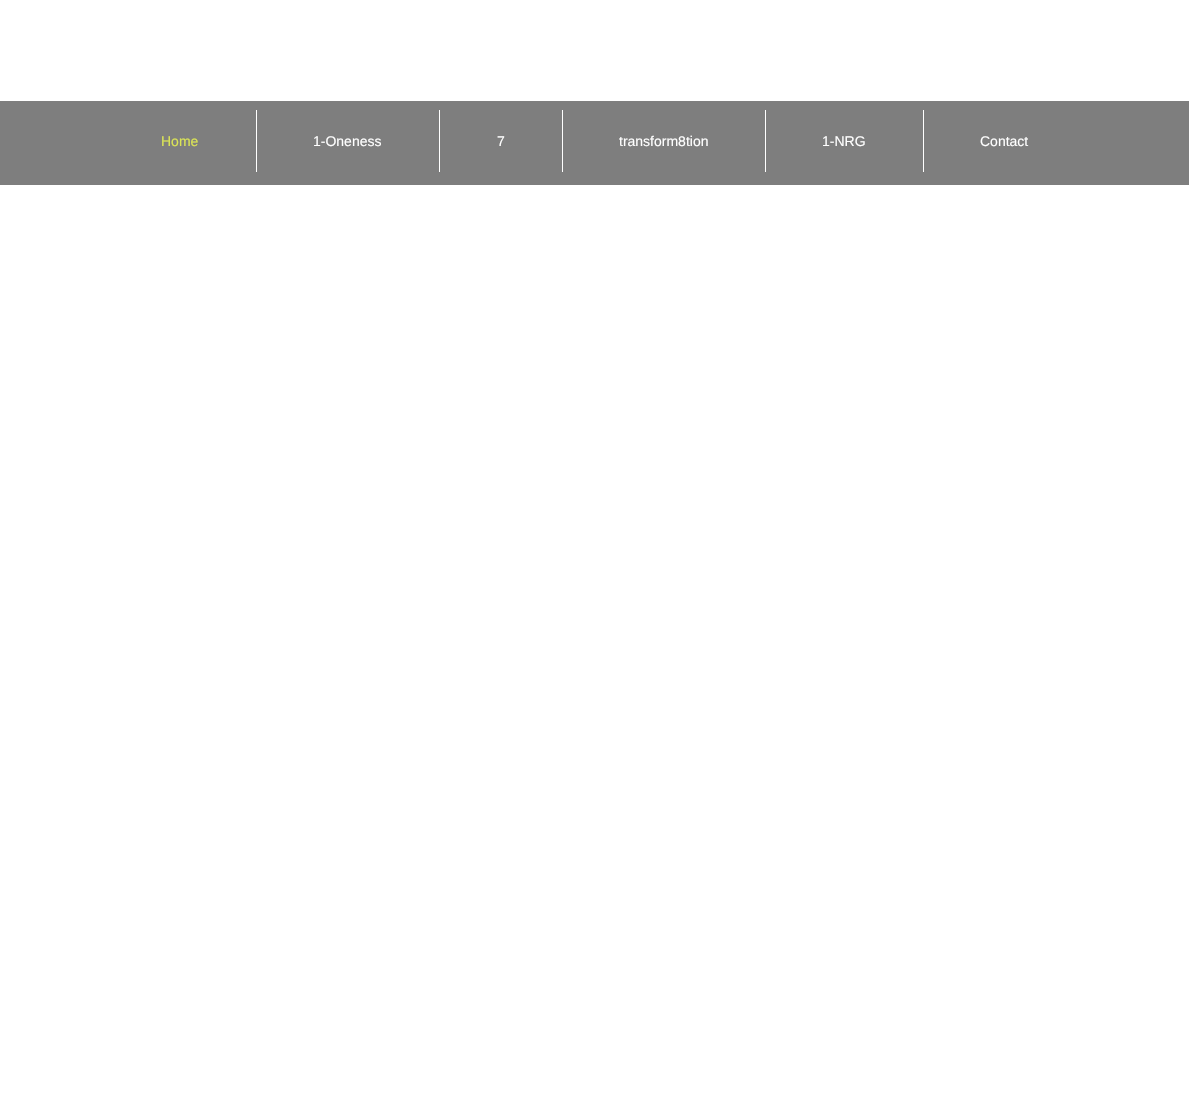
#include "include/core/SkBlurTypes.h"
#include "include/core/SkCanvas.h"
#include "include/core/SkData.h"
#include "include/core/SkFont.h"
#include "include/core/SkFontMgr.h"
#include "include/core/SkImage.h"
#include "include/core/SkMaskFilter.h"
#include "include/core/SkPaint.h"
#include "include/core/SkPathBuilder.h"
#include "include/core/SkTextBlob.h"
#include "include/effects/SkDashPathEffect.h"
#include "include/effects/SkGradientShader.h"
#include "include/utils/SkParsePath.h"

extern sk_sp<SkFontMgr> fontMgr;

void draw(SkCanvas* canvas) {
  SkPaint p;
  p.setAntiAlias(true);
  canvas->clear(SK_ColorWHITE);
  p.setColor(SkColorSetRGB(126, 126, 126));
  canvas->drawRect(SkRect::MakeLTRB(0, 101, 1189, 185), p);
  p.setColor(SK_ColorWHITE);
  canvas->drawRect(SkRect::MakeLTRB(256, 110, 257, 172), p);
  canvas->drawRect(SkRect::MakeLTRB(439, 110, 440, 172), p);
  canvas->drawRect(SkRect::MakeLTRB(562, 110, 563, 172), p);
  canvas->drawRect(SkRect::MakeLTRB(765, 110, 766, 172), p);
  canvas->drawRect(SkRect::MakeLTRB(923, 110, 924, 172), p);
  SkFont font1(fontMgr->matchFamilyStyle("Liberation Sans", SkFontStyle::Normal()), 14);
  font1.setSubpixel(true);
  p.setColor(SkColorSetRGB(218, 227, 86));
  canvas->drawString("Home", 161, 146, font1, p);
  p.setColor(SK_ColorWHITE);
  canvas->drawString("1-Oneness", 313, 146, font1, p);
  canvas->drawString("7", 497, 146, font1, p);
  canvas->drawString("transform8tion", 619, 146, font1, p);
  canvas->drawString("1-NRG", 822, 146, font1, p);
  canvas->drawString("Contact", 980, 146, font1, p);
}
